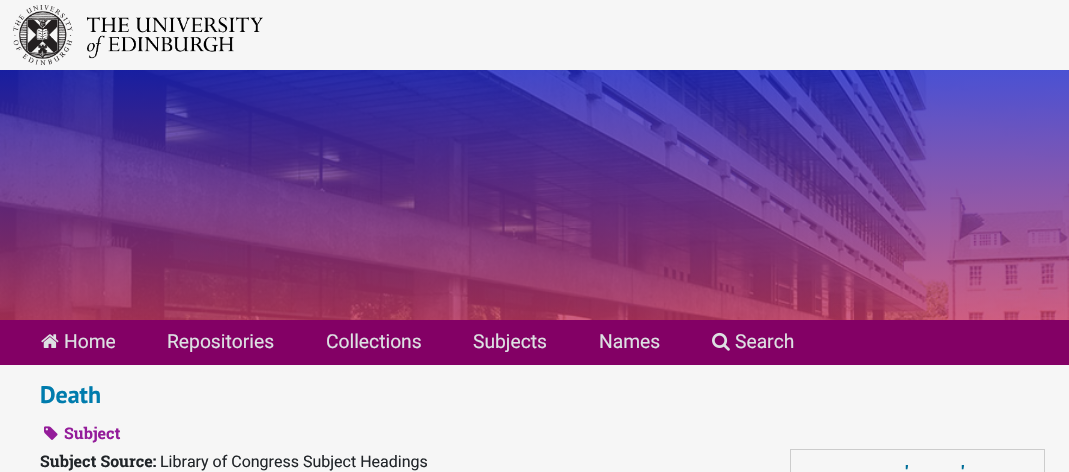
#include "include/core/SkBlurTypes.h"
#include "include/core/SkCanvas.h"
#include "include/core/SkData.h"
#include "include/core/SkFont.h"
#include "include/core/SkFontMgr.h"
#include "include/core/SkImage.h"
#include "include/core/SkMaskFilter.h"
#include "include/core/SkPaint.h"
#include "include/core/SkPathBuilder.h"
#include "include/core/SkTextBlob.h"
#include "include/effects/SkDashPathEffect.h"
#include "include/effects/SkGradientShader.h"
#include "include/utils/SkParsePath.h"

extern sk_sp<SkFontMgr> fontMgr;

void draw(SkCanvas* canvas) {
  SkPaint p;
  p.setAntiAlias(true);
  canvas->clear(SkColorSetRGB(246, 246, 246));
  canvas->drawImageRect(SkImages::DeferredFromEncodedData(SkData::MakeFromFileName("images/1.png")), SkRect::MakeLTRB(13, 5, 263, 65), SkSamplingOptions());
  canvas->drawImageRect(SkImages::DeferredFromEncodedData(SkData::MakeFromFileName("images/2.png")), SkRect::MakeLTRB(0, 70, 1069, 320), SkSamplingOptions());
  p.setColor(SkColorSetRGB(131, 0, 101));
  canvas->drawRect(SkRect::MakeLTRB(0, 320, 1069, 365), p);
  canvas->drawImageRect(SkImages::DeferredFromEncodedData(SkData::MakeFromFileName("images/3.png")), SkRect::MakeLTRB(41, 334, 59, 348), SkSamplingOptions());
  canvas->drawImageRect(SkImages::DeferredFromEncodedData(SkData::MakeFromFileName("images/4.png")), SkRect::MakeLTRB(712, 332, 730, 351), SkSamplingOptions());
  canvas->drawImageRect(SkImages::DeferredFromEncodedData(SkData::MakeFromFileName("images/5.png")), SkRect::MakeLTRB(44, 426, 58, 440), SkSamplingOptions());
  p.setStyle(SkPaint::kStroke_Style);
  p.setStrokeWidth(1);
  p.setColor(SkColorSetRGB(204, 204, 204));
  canvas->drawRect(SkRect::MakeLTRB(790.5f, 449.5f, 1044.5f, 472.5f), p);
  SkFont font1(fontMgr->matchFamilyStyle("Roboto", SkFontStyle::Normal()), 19.25f);
  font1.setSubpixel(true);
  p.setStyle(SkPaint::kFill_Style);
  p.setColor(SkColorSetRGB(221, 225, 227));
  canvas->drawString("Home", 64, 348, font1, p);
  canvas->drawString("Repositories", 167, 348, font1, p);
  canvas->drawString("Collections", 326, 348, font1, p);
  canvas->drawString("Subjects", 473, 348, font1, p);
  canvas->drawString("Names", 599, 348, font1, p);
  canvas->drawString("Search", 735, 348, font1, p);
  SkFont font2(fontMgr->matchFamilyStyle("PT Sans", SkFontStyle::Bold()), 24);
  font2.setSubpixel(true);
  p.setColor(SkColorSetRGB(0, 124, 173));
  canvas->drawString("Death", 40, 403, font2, p);
  SkFont font3(fontMgr->matchFamilyStyle("Roboto Slab", SkFontStyle::Bold()), 16);
  font3.setSubpixel(true);
  p.setColor(SkColorSetRGB(148, 28, 154));
  canvas->drawString("Subject", 64, 439, font3, p);
  p.setColor(SkColorSetRGB(33, 37, 41));
  canvas->drawString("Subject Source:", 40, 467, font3, p);
  SkFont font4(fontMgr->matchFamilyStyle("Roboto", SkFontStyle::Normal()), 16);
  font4.setSubpixel(true);
  canvas->drawString("Library of Congress Subject Headings", 160, 467, font4, p);
  SkFont font5(fontMgr->matchFamilyStyle("PT Sans", SkFontStyle::Bold()), 20);
  font5.setSubpixel(true);
  p.setColor(SkColorSetRGB(0, 110, 153));
  canvas->drawString("'", 904, 479, font5, p);
  canvas->drawString("'", 960, 479, font5, p);
}
